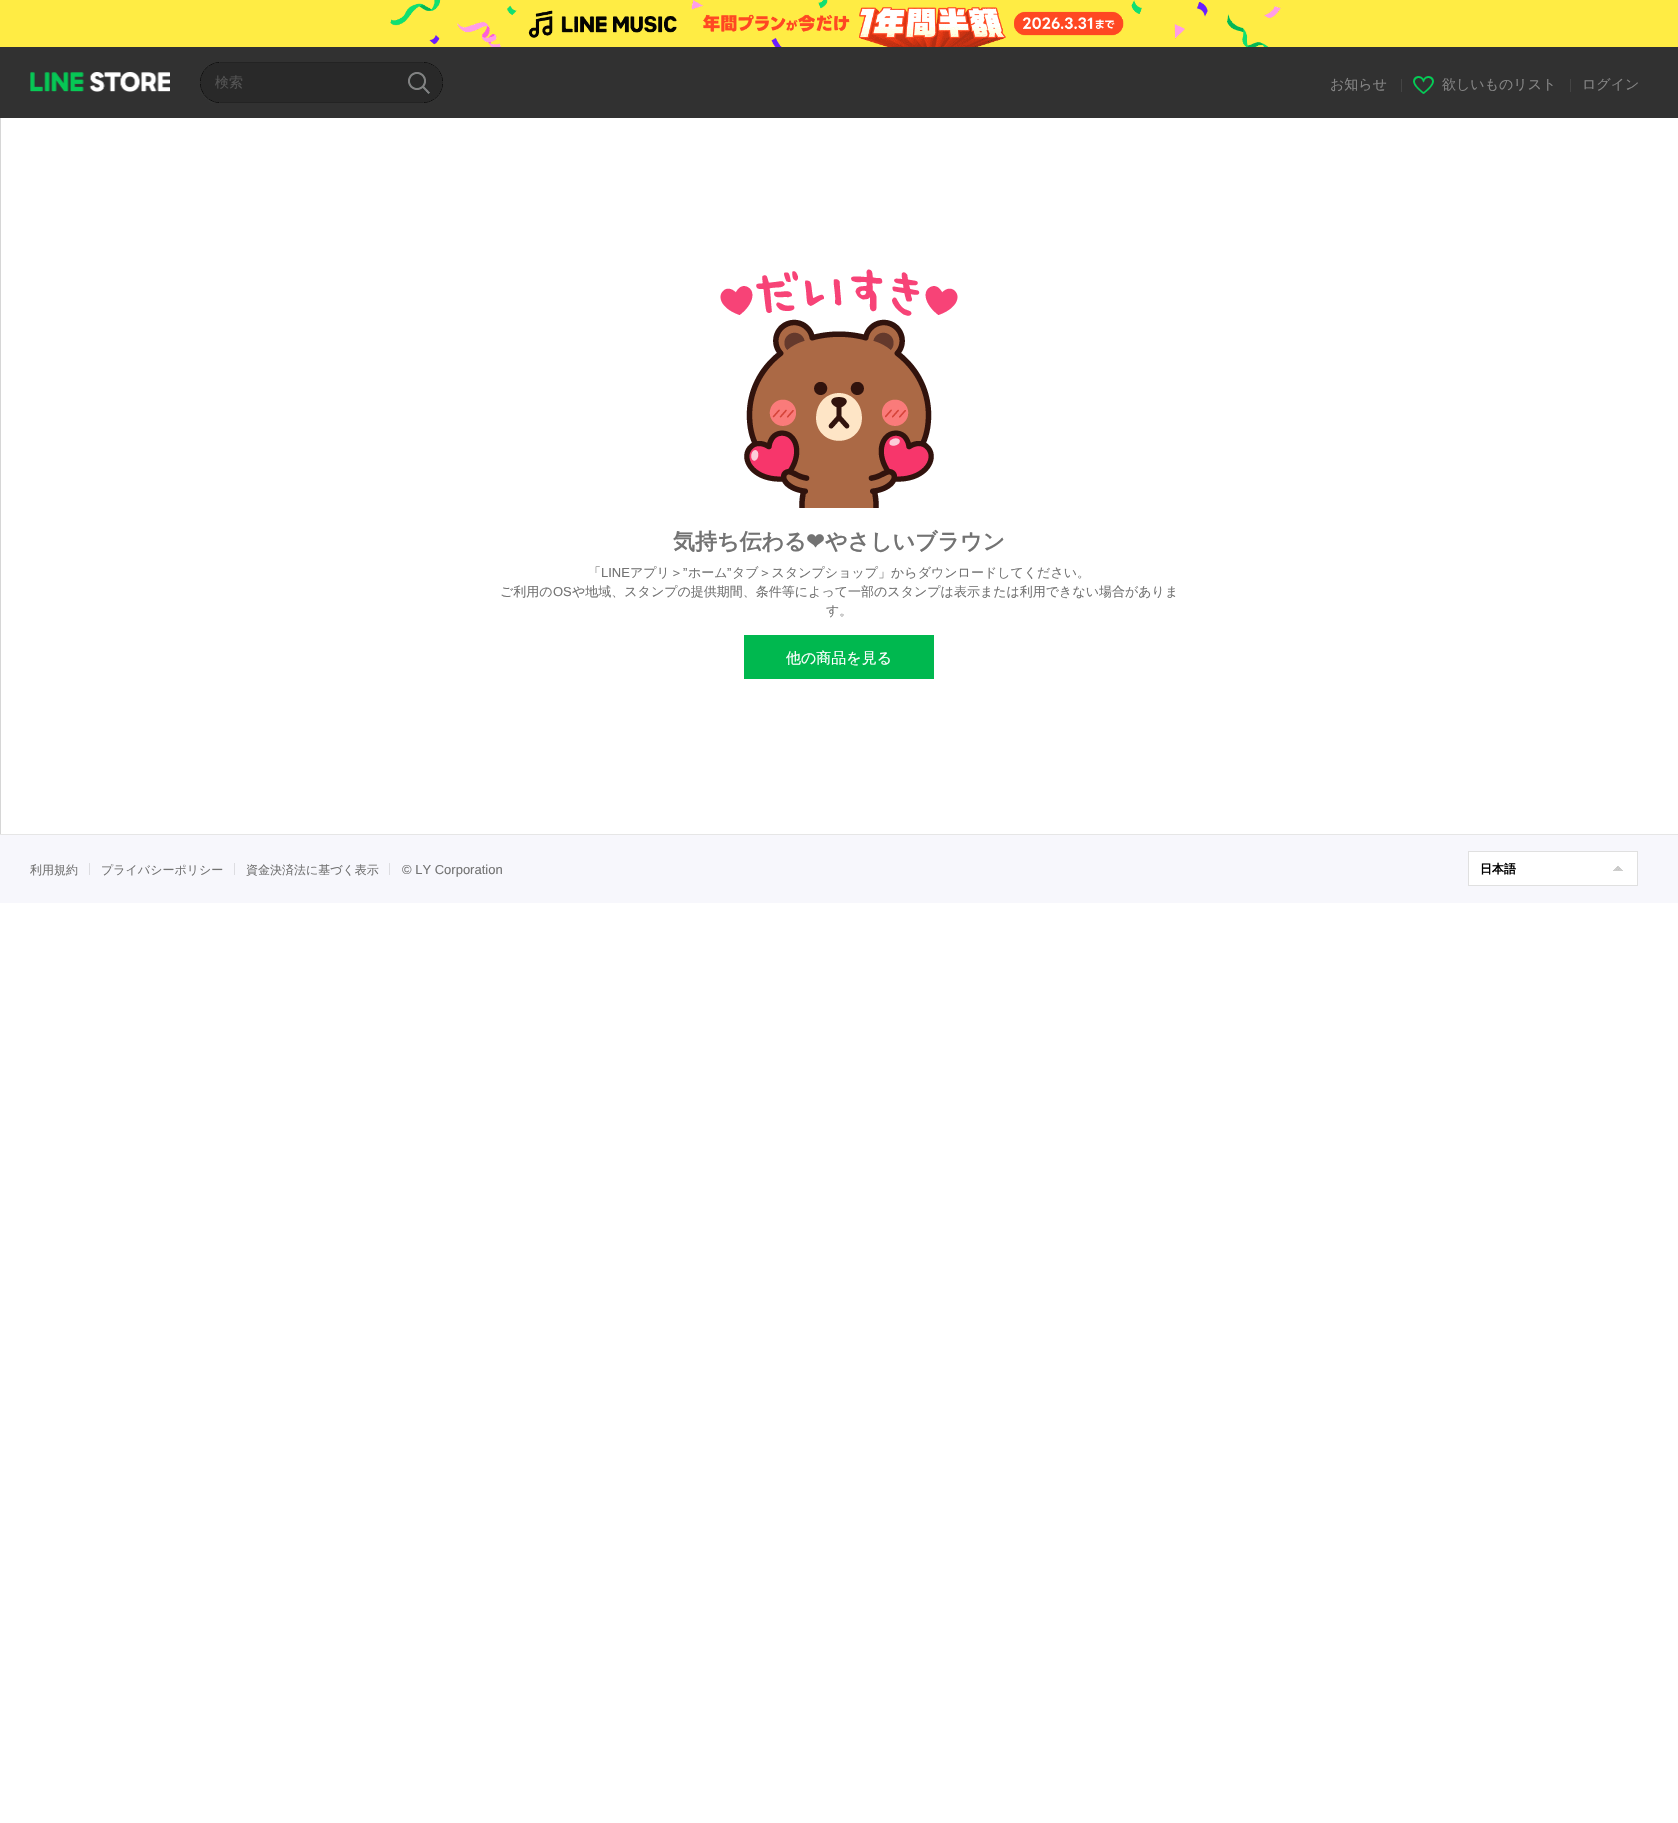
#include "include/core/SkBlurTypes.h"
#include "include/core/SkCanvas.h"
#include "include/core/SkData.h"
#include "include/core/SkFont.h"
#include "include/core/SkFontMgr.h"
#include "include/core/SkImage.h"
#include "include/core/SkMaskFilter.h"
#include "include/core/SkPaint.h"
#include "include/core/SkPathBuilder.h"
#include "include/core/SkTextBlob.h"
#include "include/effects/SkDashPathEffect.h"
#include "include/effects/SkGradientShader.h"
#include "include/utils/SkParsePath.h"

extern sk_sp<SkFontMgr> fontMgr;

void draw(SkCanvas* canvas) {
  SkPaint p;
  p.setAntiAlias(true);
  canvas->clear(SK_ColorWHITE);
  canvas->drawImageRect(SkImages::DeferredFromEncodedData(SkData::MakeFromFileName("images/1.png")), SkRect::MakeLTRB(0, 0, 1678, 47), SkSamplingOptions());
  p.setColor(SkColorSetRGB(49, 49, 49));
  canvas->drawRect(SkRect::MakeLTRB(0, 47, 1678, 118), p);
  canvas->drawImageRect(SkImages::DeferredFromEncodedData(SkData::MakeFromFileName("images/2.png")), SkRect::MakeLTRB(30, 72, 170, 92), SkSamplingOptions());
  canvas->drawImageRect(SkImages::DeferredFromEncodedData(SkData::MakeFromFileName("images/3.png")), SkRect::MakeLTRB(200, 62, 443, 103), SkSamplingOptions());
  canvas->drawImageRect(SkImages::DeferredFromEncodedData(SkData::MakeFromFileName("images/4.png")), SkRect::MakeLTRB(408, 72, 430, 94), SkSamplingOptions());
  p.setColor(SkColorSetRGB(68, 68, 68));
  canvas->drawRect(SkRect::MakeLTRB(1401, 79, 1402, 92), p);
  canvas->drawImageRect(SkImages::DeferredFromEncodedData(SkData::MakeFromFileName("images/5.png")), SkRect::MakeLTRB(1413, 76, 1434, 94), SkSamplingOptions());
  canvas->drawRect(SkRect::MakeLTRB(1570, 79, 1571, 92), p);
  p.setColor(SkColorSetRGB(214, 214, 214));
  canvas->drawRect(SkRect::MakeLTRB(0, 118, 1, 834), p);
  canvas->drawImageRect(SkImages::DeferredFromEncodedData(SkData::MakeFromFileName("images/6.png")), SkRect::MakeLTRB(720, 269, 958, 508), SkSamplingOptions());
  p.setColor(SkColorSetRGB(0, 184, 79));
  canvas->drawRect(SkRect::MakeLTRB(744, 635, 934, 679), p);
  p.setColor(SkColorSetRGB(247, 247, 252));
  canvas->drawRect(SkRect::MakeLTRB(0, 835, 1678, 903), p);
  p.setColor(SkColorSetRGB(230, 230, 230));
  canvas->drawRect(SkRect::MakeLTRB(0, 834, 1678, 835), p);
  p.setColor(SkColorSetRGB(221, 221, 225));
  canvas->drawRect(SkRect::MakeLTRB(89, 863, 90, 875), p);
  canvas->drawRect(SkRect::MakeLTRB(234, 863, 235, 875), p);
  canvas->drawRect(SkRect::MakeLTRB(389, 863, 390, 875), p);
  p.setColor(SK_ColorWHITE);
  canvas->drawRect(SkRect::MakeLTRB(1468.5f, 851.5f, 1637.5f, 885.5f), p);
  p.setStyle(SkPaint::kStroke_Style);
  p.setStrokeWidth(1);
  p.setColor(SkColorSetRGB(224, 224, 224));
  canvas->drawRect(SkRect::MakeLTRB(1468.5f, 851.5f, 1637.5f, 885.5f), p);
  canvas->drawImageRect(SkImages::DeferredFromEncodedData(SkData::MakeFromFileName("images/7.png")), SkRect::MakeLTRB(1613, 866, 1623, 871), SkSamplingOptions());
  SkFont font1(fontMgr->matchFamilyStyle("WenQuanYi Zen Hei", SkFontStyle(500, SkFontStyle::kNormal_Width, SkFontStyle::kUpright_Slant)), 14);
  font1.setSubpixel(true);
  p.setStyle(SkPaint::kFill_Style);
  p.setColor(SkColorSetRGB(84, 84, 84));
  canvas->drawString("検索", 215, 87, font1, p);
  p.setColor(SkColorSetRGB(132, 132, 132));
  canvas->drawString("お知らせ", 1330, 89, font1, p);
  canvas->drawString("欲しいものリスト", 1442, 89, font1, p);
  canvas->drawString("ログイン", 1582, 89, font1, p);
  SkFont font2(fontMgr->matchFamilyStyle("WenQuanYi Zen Hei", SkFontStyle::Bold()), 22);
  font2.setSubpixel(true);
  p.setColor(SkColorSetRGB(115, 115, 115));
  canvas->drawString("気持ち伝わる", 673, 549, font2, p);
  SkFont font3(fontMgr->matchFamilyStyle("DejaVu Sans", SkFontStyle::Bold()), 22);
  font3.setSubpixel(true);
  canvas->drawString("❤", 806, 549, font3, p);
  canvas->drawString("やさしいブラウン", 825, 549, font2, p);
  SkFont font4(fontMgr->matchFamilyStyle("WenQuanYi Zen Hei", SkFontStyle(500, SkFontStyle::kNormal_Width, SkFontStyle::kUpright_Slant)), 13);
  font4.setSubpixel(true);
  canvas->drawString("「", 588, 577, font4, p);
  SkFont font5(fontMgr->matchFamilyStyle("Liberation Sans", SkFontStyle::Normal()), 13);
  font5.setSubpixel(true);
  canvas->drawString("LINE", 601, 577, font5, p);
  canvas->drawString("アプリ＞", 630, 577, font4, p);
  canvas->drawString("”", 683, 577, font5, p);
  canvas->drawString("ホーム", 688, 577, font4, p);
  canvas->drawString("”", 727, 577, font5, p);
  canvas->drawString("タブ＞スタンプショップ」からダウンロードしてください。", 732, 577, font4, p);
  canvas->drawString("ご利用の", 500, 596, font4, p);
  canvas->drawString("OS", 553, 596, font5, p);
  canvas->drawString("や地域、スタンプの提供期間、条件等によって一部のスタンプは表示または利用できない場合がありま", 572, 596, font4, p);
  canvas->drawString("す。", 826, 615, font4, p);
  SkFont font6(fontMgr->matchFamilyStyle("WenQuanYi Zen Hei", SkFontStyle(500, SkFontStyle::kNormal_Width, SkFontStyle::kUpright_Slant)), 15);
  font6.setSubpixel(true);
  p.setColor(SK_ColorWHITE);
  canvas->drawString("他の商品を見る", 786, 663, font6, p);
  SkFont font7(fontMgr->matchFamilyStyle("WenQuanYi Zen Hei", SkFontStyle(500, SkFontStyle::kNormal_Width, SkFontStyle::kUpright_Slant)), 12);
  font7.setSubpixel(true);
  p.setColor(SkColorSetRGB(115, 115, 115));
  canvas->drawString("利用規約", 30, 874, font7, p);
  canvas->drawString("プライバシーポリシー", 101, 874, font7, p);
  canvas->drawString("資金決済法に基づく表示", 246, 874, font7, p);
  canvas->drawString("© LY Corporation", 402, 874, font5, p);
  SkFont font8(fontMgr->matchFamilyStyle("WenQuanYi Zen Hei", SkFontStyle::Bold()), 12);
  font8.setSubpixel(true);
  p.setColor(SK_ColorBLACK);
  canvas->drawString("日本語", 1480, 873, font8, p);
}
